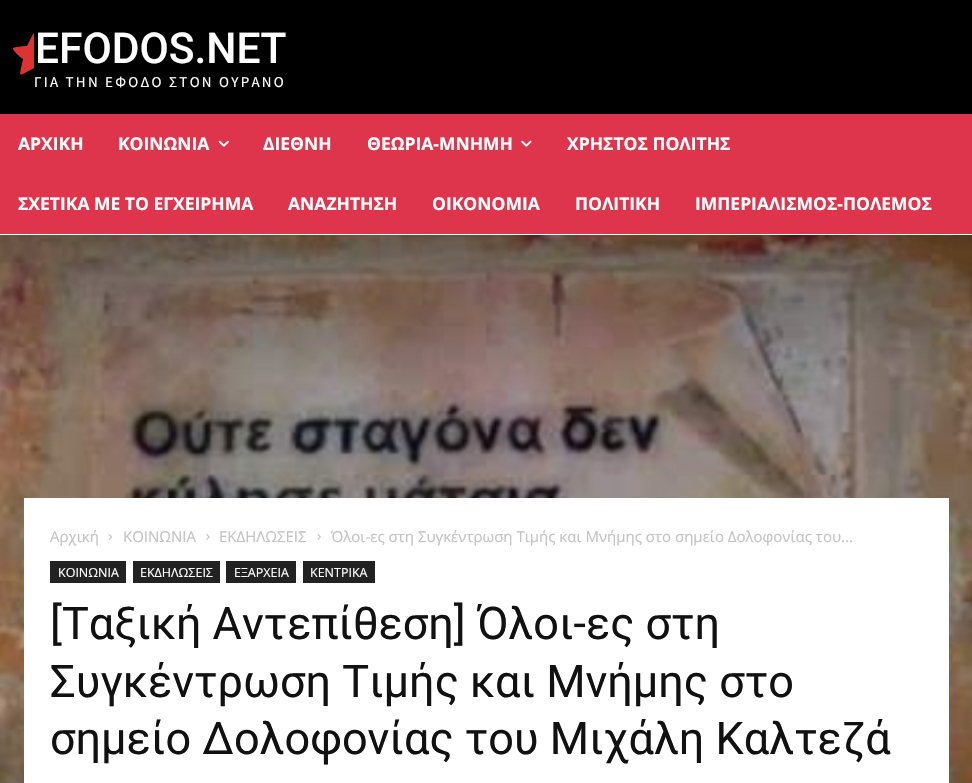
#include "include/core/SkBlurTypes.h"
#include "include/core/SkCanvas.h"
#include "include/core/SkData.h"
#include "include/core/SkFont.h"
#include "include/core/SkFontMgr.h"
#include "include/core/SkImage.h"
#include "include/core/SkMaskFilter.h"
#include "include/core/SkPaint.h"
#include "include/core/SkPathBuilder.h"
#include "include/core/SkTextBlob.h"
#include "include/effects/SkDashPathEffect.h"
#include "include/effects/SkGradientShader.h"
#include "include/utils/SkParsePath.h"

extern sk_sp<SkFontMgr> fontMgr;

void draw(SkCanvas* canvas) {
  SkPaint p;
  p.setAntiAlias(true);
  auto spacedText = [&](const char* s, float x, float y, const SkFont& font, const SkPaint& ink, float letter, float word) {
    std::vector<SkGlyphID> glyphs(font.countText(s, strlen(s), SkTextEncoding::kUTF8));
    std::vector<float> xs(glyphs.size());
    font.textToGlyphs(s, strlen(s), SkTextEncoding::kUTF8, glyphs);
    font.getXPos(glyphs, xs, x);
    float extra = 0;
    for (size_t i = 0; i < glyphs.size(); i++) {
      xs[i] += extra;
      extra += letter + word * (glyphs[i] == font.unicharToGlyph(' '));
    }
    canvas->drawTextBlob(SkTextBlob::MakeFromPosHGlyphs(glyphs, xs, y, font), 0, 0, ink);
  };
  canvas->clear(SK_ColorWHITE);
  p.setColor(SK_ColorBLACK);
  canvas->drawRect(SkRect::MakeLTRB(0, 0, 972, 114), p);
  p.setColor(SkColorSetRGB(221, 51, 51));
  canvas->drawPath(SkPathBuilder().moveTo(33, 34).lineTo(34, 33).lineTo(34, 68).cubicTo(17, 77, 19, 79, 23, 59).cubicTo(21, 58, 12, 50, 13, 48).cubicTo(14, 47, 25, 46, 27, 46).close().detach(), p);
  p.setColor(SkColorSetRGB(222, 53, 76));
  canvas->drawRect(SkRect::MakeLTRB(0, 114, 972, 234), p);
  canvas->drawImageRect(SkImages::DeferredFromEncodedData(SkData::MakeFromFileName("images/1.png")), SkRect::MakeLTRB(218, 140, 229, 147), SkSamplingOptions());
  canvas->drawImageRect(SkImages::DeferredFromEncodedData(SkData::MakeFromFileName("images/2.png")), SkRect::MakeLTRB(521, 140, 532, 147), SkSamplingOptions());
  canvas->drawImageRect(SkImages::DeferredFromEncodedData(SkData::MakeFromFileName("images/3.png")), SkRect::MakeLTRB(0, 235, 972, 783), SkSamplingOptions());
  p.setColor(SK_ColorWHITE);
  canvas->drawRect(SkRect::MakeLTRB(24, 498, 949, 783), p);
  canvas->drawImageRect(SkImages::DeferredFromEncodedData(SkData::MakeFromFileName("images/4.png")), SkRect::MakeLTRB(108, 534, 112, 540), SkSamplingOptions());
  canvas->drawImageRect(SkImages::DeferredFromEncodedData(SkData::MakeFromFileName("images/5.png")), SkRect::MakeLTRB(206, 534, 210, 540), SkSamplingOptions());
  canvas->drawImageRect(SkImages::DeferredFromEncodedData(SkData::MakeFromFileName("images/6.png")), SkRect::MakeLTRB(317, 534, 321, 540), SkSamplingOptions());
  p.setColor(SkColorSetRGB(34, 34, 34));
  canvas->drawRect(SkRect::MakeLTRB(50, 561, 126, 583), p);
  canvas->drawRect(SkRect::MakeLTRB(133, 561, 220, 583), p);
  canvas->drawRect(SkRect::MakeLTRB(226, 561, 296, 583), p);
  canvas->drawRect(SkRect::MakeLTRB(303, 561, 375, 583), p);
  SkFont font1(fontMgr->matchFamilyStyle("Roboto", SkFontStyle(500, SkFontStyle::kNormal_Width, SkFontStyle::kUpright_Slant)), 42.5f);
  font1.setSubpixel(true);
  p.setColor(SK_ColorWHITE);
  canvas->drawString("EFODOS.NET", 35, 63, font1, p);
  SkFont font2(fontMgr->matchFamilyStyle("Source Sans Pro", SkFontStyle::Normal()), 15);
  font2.setSubpixel(true);
  spacedText("ΓΙΑ ΤΗΝ ΕΦΟΔΟ ΣΤΟΝ ΟΥΡΑΝΟ", 34, 87, font2, p, 2.25f, 0);
  SkFont font3(fontMgr->matchFamilyStyle("Open Sans", SkFontStyle::Bold()), 17.5f);
  font3.setSubpixel(true);
  canvas->drawString("ΑΡΧΙΚΗ", 18, 150, font3, p);
  canvas->drawString("ΚΟΙΝΩΝΙΑ", 118, 150, font3, p);
  canvas->drawString("ΔΙΕΘΝΗ", 263, 150, font3, p);
  canvas->drawString("ΘΕΩΡΙΑ-ΜΝΗΜΗ", 367, 150, font3, p);
  canvas->drawString("ΧΡΗΣΤΟΣ ΠΟΛΙΤΗΣ", 567, 150, font3, p);
  canvas->drawString("ΣΧΕΤΙΚΑ ΜΕ ΤΟ ΕΓΧΕΙΡΗΜΑ", 18, 210, font3, p);
  canvas->drawString("ΑΝΑΖΗΤΗΣΗ", 288, 210, font3, p);
  canvas->drawString("ΟΙΚΟΝΟΜΙΑ", 432, 210, font3, p);
  canvas->drawString("ΠΟΛΙΤΙΚΗ", 575, 210, font3, p);
  canvas->drawString("ΙΜΠΕΡΙΑΛΙΣΜΟΣ-ΠΟΛΕΜΟΣ", 695, 210, font3, p);
  SkFont font4(fontMgr->matchFamilyStyle("Open Sans", SkFontStyle::Normal()), 15);
  font4.setSubpixel(true);
  p.setColor(SkColorSetRGB(195, 195, 195));
  canvas->drawString("Αρχική", 50, 542, font4, p);
  canvas->drawString("ΚΟΙΝΩΝΙΑ", 123, 542, font4, p);
  canvas->drawString("ΕΚΔΗΛΩΣΕΙΣ", 219, 542, font4, p);
  canvas->drawString("Όλοι-ες στη Συγκέντρωση Τιμής και Μνήμης στο σημείο Δολοφονίας του...", 331, 542, font4, p);
  SkFont font5(fontMgr->matchFamilyStyle("Open Sans", SkFontStyle::Normal()), 12.5f);
  font5.setSubpixel(true);
  p.setColor(SK_ColorWHITE);
  canvas->drawString("ΚΟΙΝΩΝΙΑ", 58, 577, font5, p);
  canvas->drawString("ΕΚΔΗΛΩΣΕΙΣ", 140, 577, font5, p);
  canvas->drawString("ΕΞΑΡΧΕΙΑ", 234, 577, font5, p);
  canvas->drawString("ΚΕΝΤΡΙΚΑ", 310, 577, font5, p);
  SkFont font6(fontMgr->matchFamilyStyle("Roboto", SkFontStyle::Normal()), 45);
  font6.setSubpixel(true);
  p.setColor(SkColorSetRGB(17, 17, 17));
  canvas->drawString("[Ταξική Αντεπίθεση] Όλοι-ες στη", 50, 639, font6, p);
  canvas->drawString("Συγκέντρωση Τιμής και Μνήμης στο", 50, 697, font6, p);
  canvas->drawString("σημείο Δολοφονίας του Μιχάλη Καλτεζά", 50, 754, font6, p);
}
